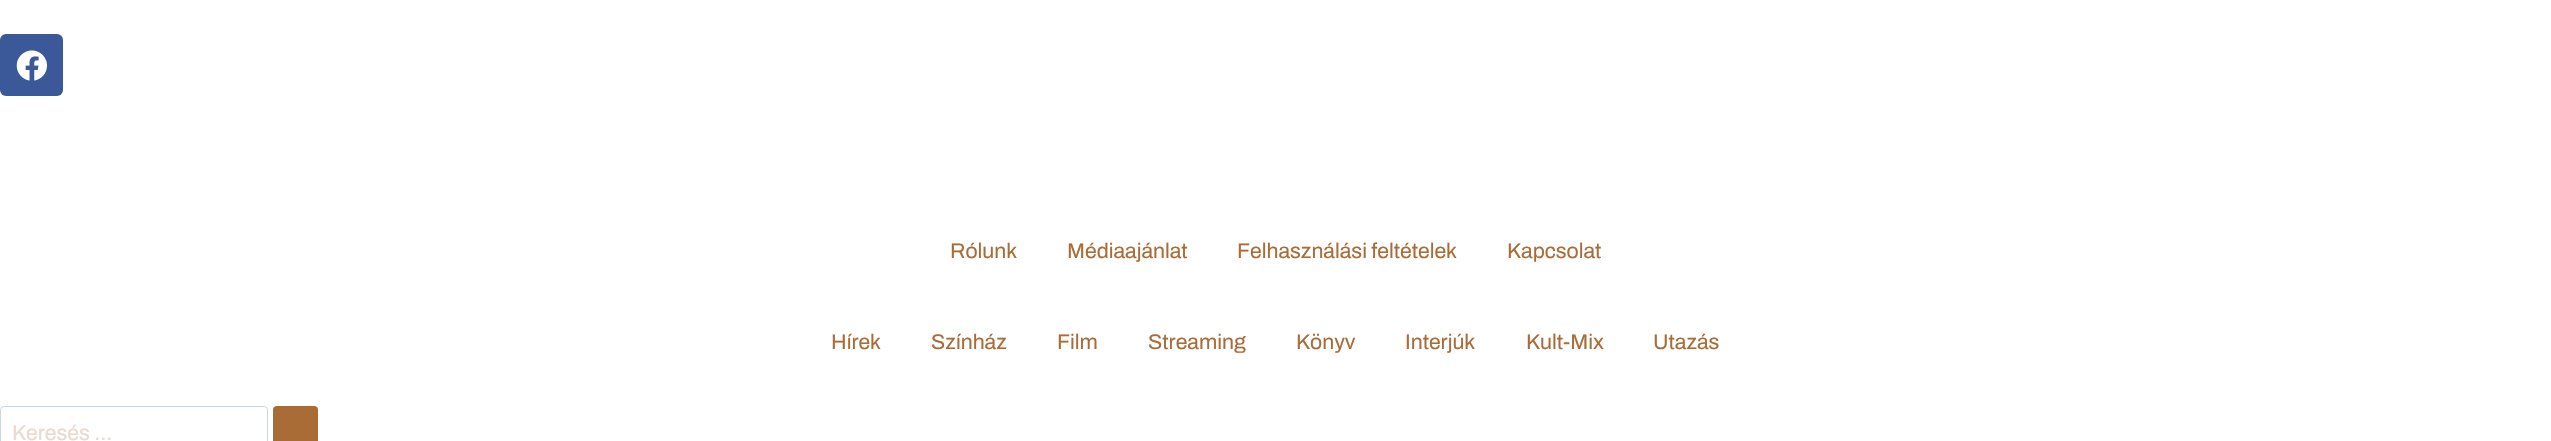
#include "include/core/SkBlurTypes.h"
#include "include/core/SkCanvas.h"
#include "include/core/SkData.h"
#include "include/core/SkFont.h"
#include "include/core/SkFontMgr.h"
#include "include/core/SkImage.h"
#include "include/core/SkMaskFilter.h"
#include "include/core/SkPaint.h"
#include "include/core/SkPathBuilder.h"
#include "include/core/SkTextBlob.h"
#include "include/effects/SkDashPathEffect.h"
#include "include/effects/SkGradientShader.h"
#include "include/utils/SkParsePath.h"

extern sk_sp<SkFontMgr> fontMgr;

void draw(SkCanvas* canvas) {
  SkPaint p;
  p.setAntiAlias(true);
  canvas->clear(SK_ColorWHITE);
  p.setColor(SkColorSetRGB(59, 89, 152));
  canvas->drawRoundRect(SkRect::MakeLTRB(0, 34, 63, 96), 6, 6, p);
  canvas->drawImageRect(SkImages::DeferredFromEncodedData(SkData::MakeFromFileName("images/1.png")), SkRect::MakeLTRB(16, 50, 47, 81), SkSamplingOptions());
  p.setStyle(SkPaint::kStroke_Style);
  p.setStrokeWidth(1);
  p.setColor(SkColorSetRGB(203, 213, 224));
  canvas->drawRoundRect(SkRect::MakeLTRB(0.5f, 406.5f, 267.5f, 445.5f), 3.5f, 3.5f, p);
  p.setStyle(SkPaint::kFill_Style);
  p.setColor(SkColorSetRGB(170, 108, 55));
  canvas->drawRoundRect(SkRect::MakeLTRB(273, 406, 318, 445), 4, 4, p);
  SkFont font1(fontMgr->matchFamilyStyle("Archivo", SkFontStyle::Normal()), 21.25f);
  font1.setSubpixel(true);
  canvas->drawString("Rólunk", 950, 258, font1, p);
  canvas->drawString("Médiaajánlat", 1067, 258, font1, p);
  canvas->drawString("Felhasználási feltételek", 1237, 258, font1, p);
  canvas->drawString("Kapcsolat", 1507, 258, font1, p);
  canvas->drawString("Hírek", 831, 349, font1, p);
  canvas->drawString("Színház", 931, 349, font1, p);
  canvas->drawString("Film", 1057, 349, font1, p);
  canvas->drawString("Streaming", 1148, 349, font1, p);
  canvas->drawString("Könyv", 1296, 349, font1, p);
  canvas->drawString("Interjúk", 1405, 349, font1, p);
  canvas->drawString("Kult-Mix", 1526, 349, font1, p);
  canvas->drawString("Utazás", 1653, 349, font1, p);
  p.setColor(SkColorSetRGB(234, 218, 205));
  canvas->drawString("Keresés …", 12, 440, font1, p);
}
